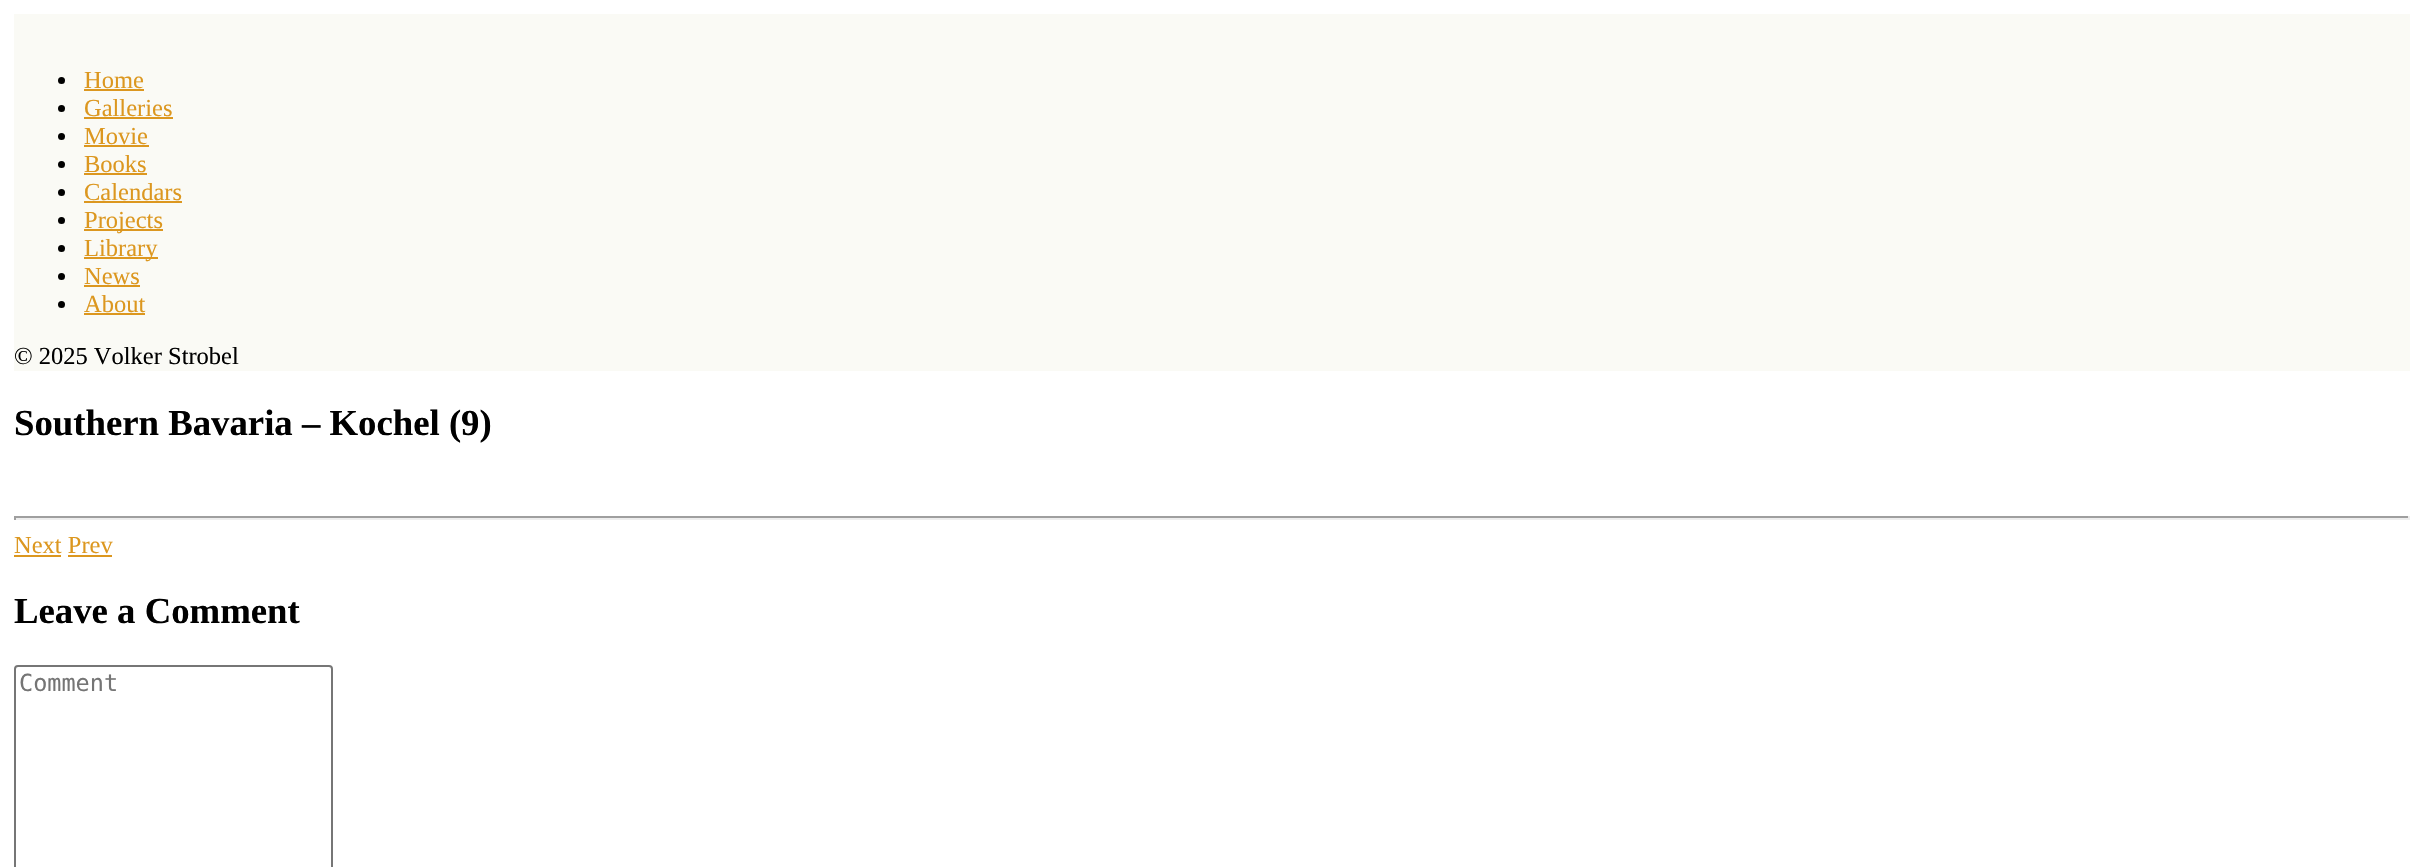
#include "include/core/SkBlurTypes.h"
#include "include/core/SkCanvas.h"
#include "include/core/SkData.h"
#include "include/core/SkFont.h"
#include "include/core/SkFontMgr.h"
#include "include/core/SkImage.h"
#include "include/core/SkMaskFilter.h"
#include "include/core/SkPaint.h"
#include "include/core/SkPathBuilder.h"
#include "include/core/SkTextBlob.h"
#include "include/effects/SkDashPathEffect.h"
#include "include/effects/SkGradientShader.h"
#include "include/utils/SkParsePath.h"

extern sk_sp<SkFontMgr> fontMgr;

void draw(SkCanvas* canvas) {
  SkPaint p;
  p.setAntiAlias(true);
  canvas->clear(SK_ColorWHITE);
  p.setColor(SkColorSetRGB(250, 250, 245));
  canvas->drawRect(SkRect::MakeLTRB(14, 14, 2410, 371), p);
  p.setColor(SK_ColorBLACK);
  canvas->drawCircle(61.5f, 80.5f, 3.5f, p);
  p.setColor(SkColorSetRGB(220, 151, 31));
  canvas->drawRect(SkRect::MakeLTRB(84, 89, 144, 91), p);
  p.setColor(SK_ColorBLACK);
  canvas->drawCircle(61.5f, 108.5f, 3.5f, p);
  p.setColor(SkColorSetRGB(220, 151, 31));
  canvas->drawRect(SkRect::MakeLTRB(84, 117, 173, 119), p);
  p.setColor(SK_ColorBLACK);
  canvas->drawCircle(61.5f, 136.5f, 3.5f, p);
  p.setColor(SkColorSetRGB(220, 151, 31));
  canvas->drawRect(SkRect::MakeLTRB(84, 145, 149, 147), p);
  p.setColor(SK_ColorBLACK);
  canvas->drawCircle(61.5f, 164.5f, 3.5f, p);
  p.setColor(SkColorSetRGB(220, 151, 31));
  canvas->drawRect(SkRect::MakeLTRB(84, 173, 147, 175), p);
  p.setColor(SK_ColorBLACK);
  canvas->drawCircle(61.5f, 192.5f, 3.5f, p);
  p.setColor(SkColorSetRGB(220, 151, 31));
  canvas->drawRect(SkRect::MakeLTRB(84, 201, 182, 203), p);
  p.setColor(SK_ColorBLACK);
  canvas->drawCircle(61.5f, 220.5f, 3.5f, p);
  p.setColor(SkColorSetRGB(220, 151, 31));
  canvas->drawRect(SkRect::MakeLTRB(84, 229, 163, 231), p);
  p.setColor(SK_ColorBLACK);
  canvas->drawCircle(61.5f, 248.5f, 3.5f, p);
  p.setColor(SkColorSetRGB(220, 151, 31));
  canvas->drawRect(SkRect::MakeLTRB(84, 257, 158, 259), p);
  p.setColor(SK_ColorBLACK);
  canvas->drawCircle(61.5f, 276.5f, 3.5f, p);
  p.setColor(SkColorSetRGB(220, 151, 31));
  canvas->drawRect(SkRect::MakeLTRB(84, 285, 140, 287), p);
  p.setColor(SK_ColorBLACK);
  canvas->drawCircle(61.5f, 304.5f, 3.5f, p);
  p.setColor(SkColorSetRGB(220, 151, 31));
  canvas->drawRect(SkRect::MakeLTRB(84, 313, 145, 315), p);
  p.setColor(SkColorSetRGB(159, 159, 159));
  canvas->drawRect(SkRect::MakeLTRB(14, 516, 2410, 518), p);
  p.setColor(SkColorSetRGB(238, 238, 238));
  canvas->drawRect(SkRect::MakeLTRB(2408, 516, 2410, 520), p);
  canvas->drawRect(SkRect::MakeLTRB(14, 518, 2410, 520), p);
  p.setColor(SkColorSetRGB(159, 159, 159));
  canvas->drawRect(SkRect::MakeLTRB(14, 516, 16, 520), p);
  p.setColor(SkColorSetRGB(220, 151, 31));
  canvas->drawRect(SkRect::MakeLTRB(14, 555, 61, 557), p);
  canvas->drawRect(SkRect::MakeLTRB(68, 555, 112, 557), p);
  p.setStyle(SkPaint::kStroke_Style);
  p.setStrokeWidth(2);
  p.setColor(SkColorSetRGB(118, 118, 118));
  canvas->drawRoundRect(SkRect::MakeLTRB(15, 666, 332, 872), 3, 3, p);
  SkFont font1(fontMgr->matchFamilyStyle("Liberation Serif", SkFontStyle::Normal()), 24.5f);
  font1.setSubpixel(true);
  p.setStyle(SkPaint::kFill_Style);
  p.setColor(SkColorSetRGB(220, 151, 31));
  canvas->drawString("Home", 84, 88, font1, p);
  canvas->drawString("Galleries", 84, 116, font1, p);
  canvas->drawString("Movie", 84, 144, font1, p);
  canvas->drawString("Books", 84, 172, font1, p);
  canvas->drawString("Calendars", 84, 200, font1, p);
  canvas->drawString("Projects", 84, 228, font1, p);
  canvas->drawString("Library", 84, 256, font1, p);
  canvas->drawString("News", 84, 284, font1, p);
  canvas->drawString("About", 84, 312, font1, p);
  p.setColor(SK_ColorBLACK);
  canvas->drawString("© 2025 Volker Strobel", 14, 364, font1, p);
  SkFont font2(fontMgr->matchFamilyStyle("Liberation Serif", SkFontStyle::Bold()), 36.75f);
  font2.setSubpixel(true);
  canvas->drawString("Southern Bavaria – Kochel (9)", 14, 435, font2, p);
  p.setColor(SkColorSetRGB(220, 151, 31));
  canvas->drawString("Next Prev", 14, 553, font1, p);
  p.setColor(SK_ColorBLACK);
  canvas->drawString("Leave a Comment", 14, 623, font2, p);
  SkFont font3(fontMgr->matchFamilyStyle("DejaVu Sans Mono", SkFontStyle::Normal()), 23.5f);
  font3.setSubpixel(true);
  p.setColor(SkColorSetRGB(117, 117, 117));
  canvas->drawString("Comment", 19, 691, font3, p);
}
